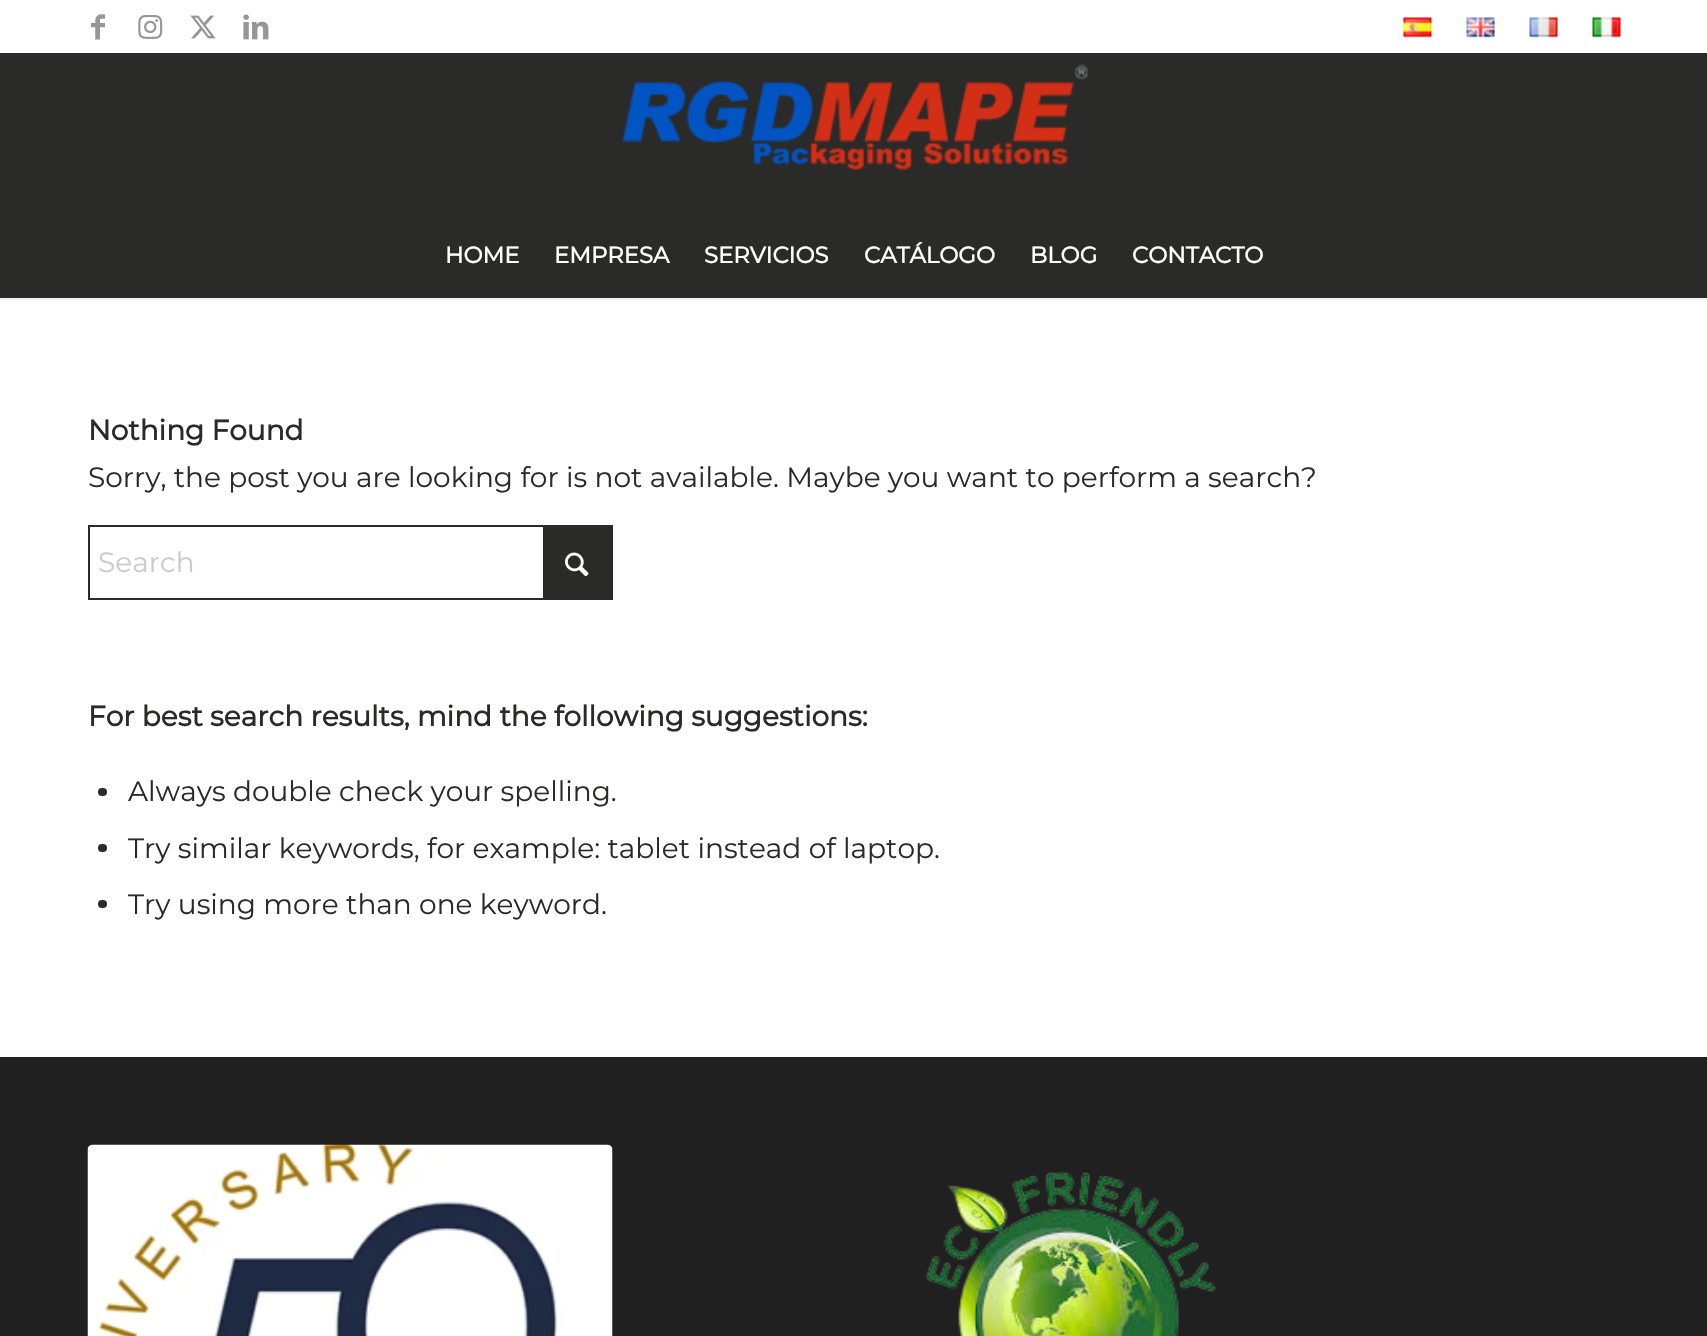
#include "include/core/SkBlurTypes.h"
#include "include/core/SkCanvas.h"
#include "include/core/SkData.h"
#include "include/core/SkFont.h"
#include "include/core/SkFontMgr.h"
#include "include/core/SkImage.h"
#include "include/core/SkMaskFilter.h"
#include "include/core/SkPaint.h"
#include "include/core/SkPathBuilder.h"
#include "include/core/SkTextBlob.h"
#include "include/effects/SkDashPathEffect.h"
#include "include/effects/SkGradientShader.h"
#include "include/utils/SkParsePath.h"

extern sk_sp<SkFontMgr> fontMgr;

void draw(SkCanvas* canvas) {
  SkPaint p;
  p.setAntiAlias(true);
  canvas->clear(SkColorSetRGB(32, 32, 32));
  p.setColor(SK_ColorWHITE);
  canvas->drawRect(SkRect::MakeLTRB(0, 298, 1707, 1057), p);
  p.setColor(SkColorSetARGB(26, 0, 0, 0));
  p.setMaskFilter(SkMaskFilter::MakeBlur(kNormal_SkBlurStyle, 2));
  canvas->drawRect(SkRect::MakeLTRB(-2, -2, 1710, 299), p);
  p.setMaskFilter(nullptr);
  p.setColor(SK_ColorWHITE);
  canvas->drawRect(SkRect::MakeLTRB(0, 0, 1707, 53), p);
  canvas->drawImageRect(SkImages::DeferredFromEncodedData(SkData::MakeFromFileName("images/1.png")), SkRect::MakeLTRB(91, 14, 105, 40), SkSamplingOptions());
  canvas->drawImageRect(SkImages::DeferredFromEncodedData(SkData::MakeFromFileName("images/2.png")), SkRect::MakeLTRB(138, 14, 163, 39), SkSamplingOptions());
  canvas->drawImageRect(SkImages::DeferredFromEncodedData(SkData::MakeFromFileName("images/3.png")), SkRect::MakeLTRB(190, 15, 216, 39), SkSamplingOptions());
  canvas->drawImageRect(SkImages::DeferredFromEncodedData(SkData::MakeFromFileName("images/4.png")), SkRect::MakeLTRB(243, 14, 269, 40), SkSamplingOptions());
  canvas->drawImageRect(SkImages::DeferredFromEncodedData(SkData::MakeFromFileName("images/5.png")), SkRect::MakeLTRB(1403, 17, 1432, 38), SkSamplingOptions());
  canvas->drawImageRect(SkImages::DeferredFromEncodedData(SkData::MakeFromFileName("images/6.png")), SkRect::MakeLTRB(1466, 17, 1495, 38), SkSamplingOptions());
  canvas->drawImageRect(SkImages::DeferredFromEncodedData(SkData::MakeFromFileName("images/7.png")), SkRect::MakeLTRB(1529, 17, 1558, 38), SkSamplingOptions());
  canvas->drawImageRect(SkImages::DeferredFromEncodedData(SkData::MakeFromFileName("images/8.png")), SkRect::MakeLTRB(1592, 17, 1621, 38), SkSamplingOptions());
  p.setColor(SkColorSetRGB(42, 42, 41));
  canvas->drawRect(SkRect::MakeLTRB(0, 53, 1707, 298), p);
  canvas->drawImageRect(SkImages::DeferredFromEncodedData(SkData::MakeFromFileName("images/9.png")), SkRect::MakeLTRB(621, 64, 1088, 171), SkSamplingOptions());
  p.setStyle(SkPaint::kStroke_Style);
  p.setStrokeWidth(2);
  canvas->drawRect(SkRect::MakeLTRB(89, 526, 612, 599), p);
  p.setStyle(SkPaint::kFill_Style);
  canvas->drawRect(SkRect::MakeLTRB(543, 527, 611, 598), p);
  canvas->drawImageRect(SkImages::DeferredFromEncodedData(SkData::MakeFromFileName("images/10.png")), SkRect::MakeLTRB(565, 552, 589, 577), SkSamplingOptions());
  canvas->drawRoundRect(SkRect::MakeLTRB(98, 788, 107, 796), 4, 4, p);
  canvas->drawRoundRect(SkRect::MakeLTRB(98, 844, 107, 852), 4, 4, p);
  canvas->drawRoundRect(SkRect::MakeLTRB(98, 900, 107, 908), 4, 4, p);
  canvas->drawImageRect(SkImages::DeferredFromEncodedData(SkData::MakeFromFileName("images/11.png")), SkRect::MakeLTRB(87, 1144, 613, 1336), SkSamplingOptions());
  canvas->drawImageRect(SkImages::DeferredFromEncodedData(SkData::MakeFromFileName("images/12.png")), SkRect::MakeLTRB(925, 1171, 1216, 1336), SkSamplingOptions());
  SkFont font1(fontMgr->matchFamilyStyle("Montserrat", SkFontStyle::Bold()), 22.75f);
  font1.setSubpixel(true);
  p.setColor(SK_ColorWHITE);
  canvas->drawString("HOME", 445, 263, font1, p);
  canvas->drawString("EMPRESA", 554, 263, font1, p);
  canvas->drawString("SERVICIOS", 704, 263, font1, p);
  canvas->drawString("CATÁLOGO", 864, 263, font1, p);
  canvas->drawString("BLOG", 1030, 263, font1, p);
  canvas->drawString("CONTACTO", 1132, 263, font1, p);
  SkFont font2(fontMgr->matchFamilyStyle("Montserrat", SkFontStyle::Bold()), 28);
  font2.setSubpixel(true);
  p.setColor(SkColorSetRGB(42, 42, 41));
  canvas->drawString("Nothing Found", 88, 440, font2, p);
  SkFont font3(fontMgr->matchFamilyStyle("Montserrat", SkFontStyle(100, SkFontStyle::kNormal_Width, SkFontStyle::kUpright_Slant)), 28);
  font3.setSubpixel(true);
  canvas->drawString("Sorry, the post you are looking for is not available. Maybe you want to perform a search?", 88, 487, font3, p);
  p.setColor(SkColorSetRGB(203, 203, 203));
  canvas->drawString("Search", 98, 572, font3, p);
  p.setColor(SkColorSetRGB(42, 42, 41));
  canvas->drawString("For best search results, mind the following suggestions:", 88, 726, font2, p);
  canvas->drawString("Always double check your spelling.", 128, 801, font3, p);
  canvas->drawString("Try similar keywords, for example: tablet instead of laptop.", 128, 858, font3, p);
  canvas->drawString("Try using more than one keyword.", 128, 914, font3, p);
}
